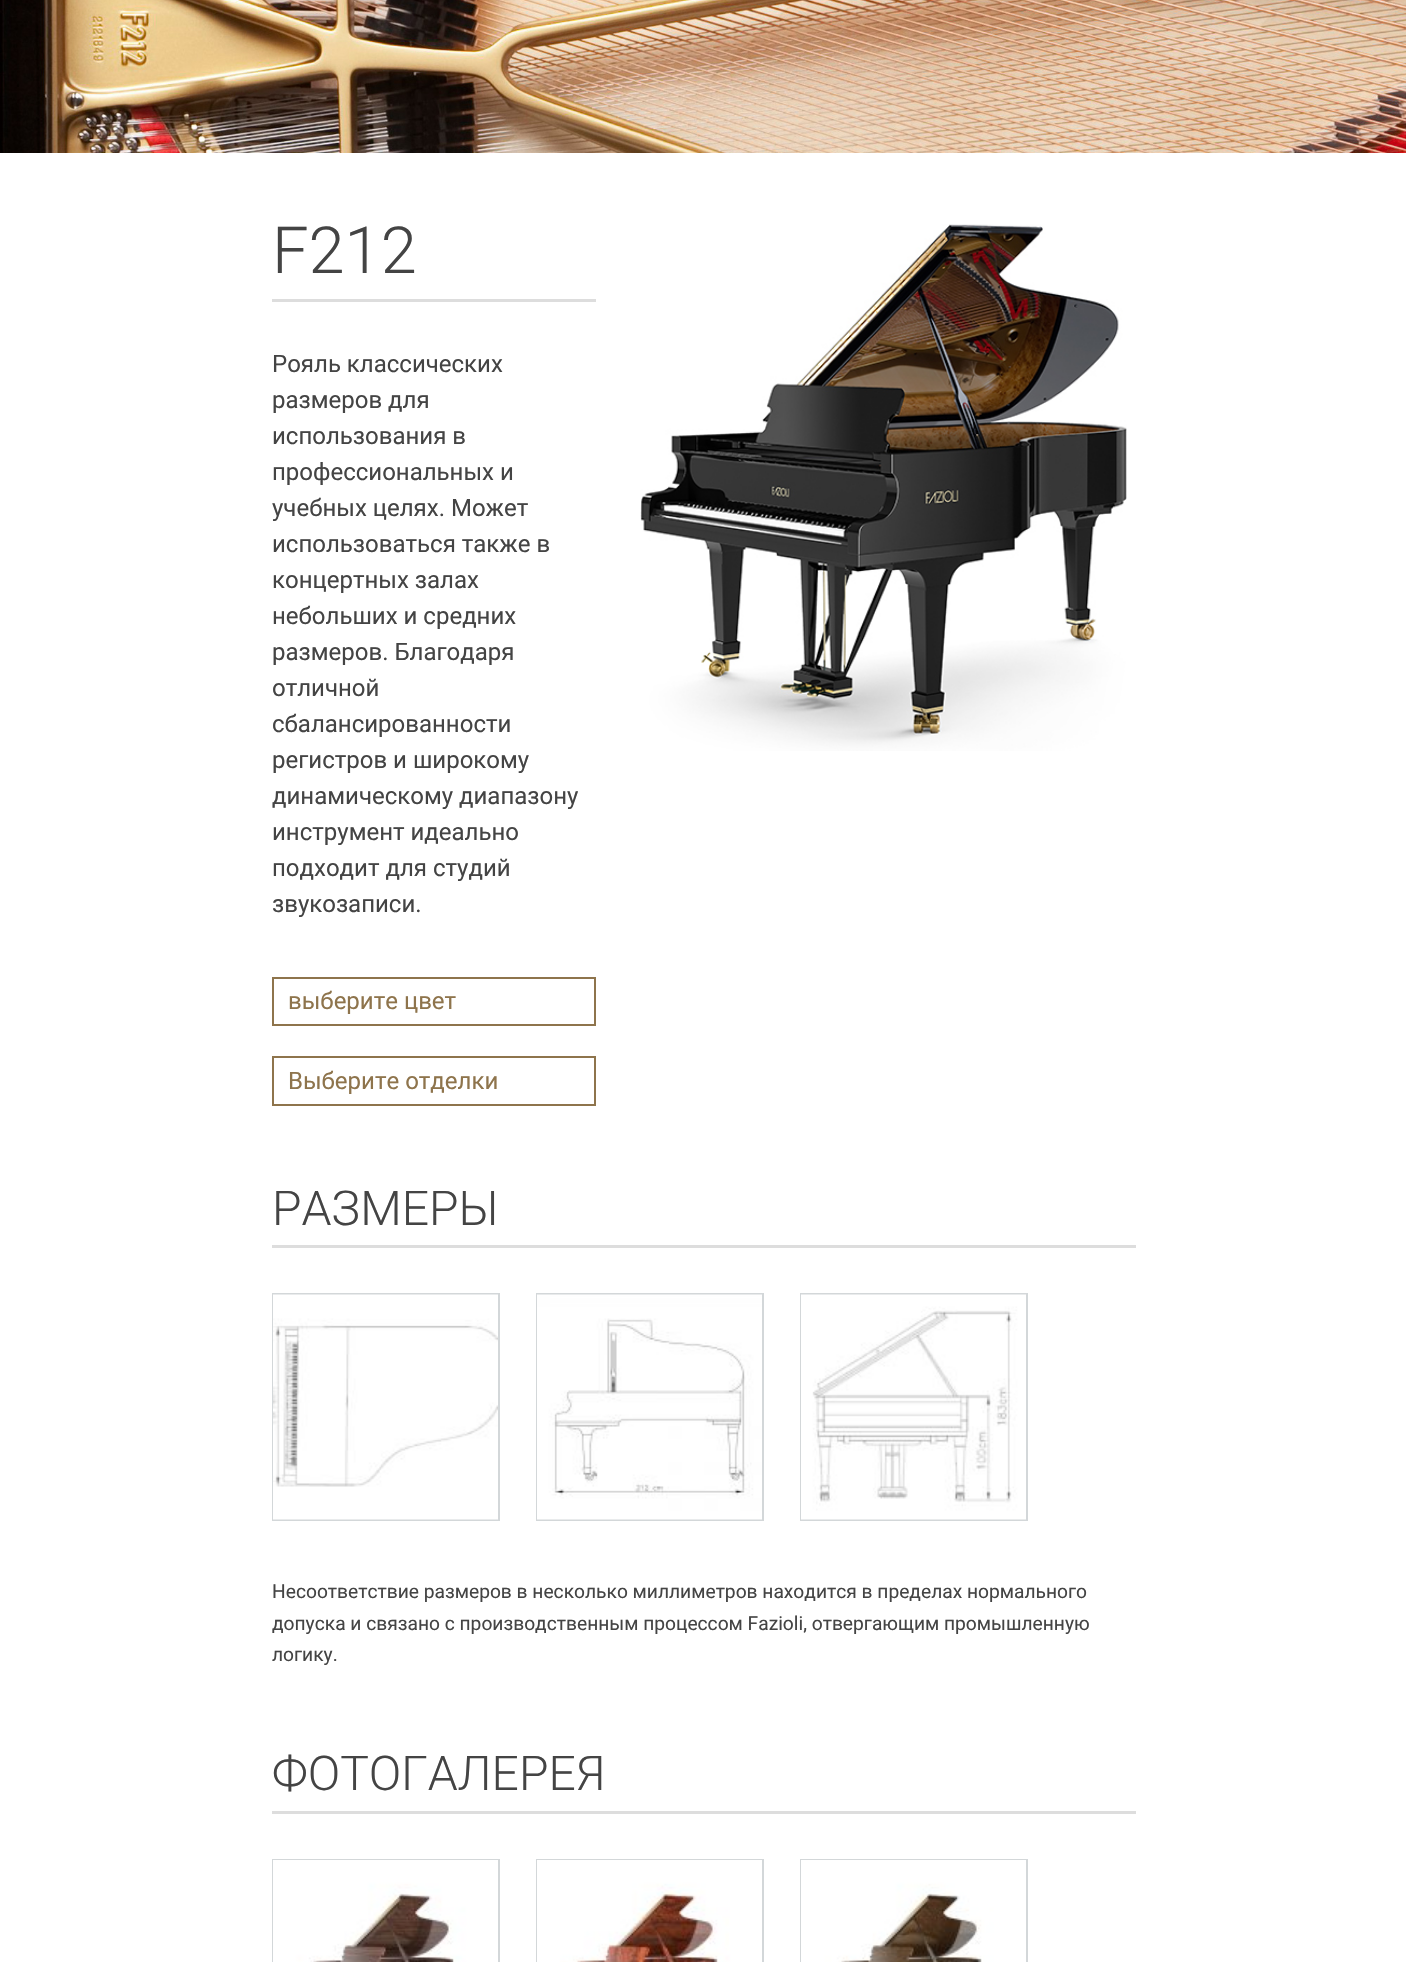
#include "include/core/SkBlurTypes.h"
#include "include/core/SkCanvas.h"
#include "include/core/SkData.h"
#include "include/core/SkFont.h"
#include "include/core/SkFontMgr.h"
#include "include/core/SkImage.h"
#include "include/core/SkMaskFilter.h"
#include "include/core/SkPaint.h"
#include "include/core/SkPathBuilder.h"
#include "include/core/SkTextBlob.h"
#include "include/effects/SkDashPathEffect.h"
#include "include/effects/SkGradientShader.h"
#include "include/utils/SkParsePath.h"

extern sk_sp<SkFontMgr> fontMgr;

void draw(SkCanvas* canvas) {
  SkPaint p;
  p.setAntiAlias(true);
  canvas->clear(SK_ColorWHITE);
  canvas->drawImageRect(SkImages::DeferredFromEncodedData(SkData::MakeFromFileName("images/1.png")), SkRect::MakeLTRB(0, 0, 1406, 153), SkSamplingOptions());
  p.setColor(SkColorSetRGB(221, 221, 221));
  canvas->drawRect(SkRect::MakeLTRB(272, 299, 596, 302), p);
  p.setStyle(SkPaint::kStroke_Style);
  p.setStrokeWidth(2);
  p.setColor(SkColorSetRGB(142, 116, 76));
  canvas->drawRect(SkRect::MakeLTRB(273, 978, 595, 1025), p);
  canvas->drawRect(SkRect::MakeLTRB(273, 1057, 595, 1105), p);
  canvas->drawImageRect(SkImages::DeferredFromEncodedData(SkData::MakeFromFileName("images/2.png")), SkRect::MakeLTRB(640, 224, 1127, 751), SkSamplingOptions());
  p.setStyle(SkPaint::kFill_Style);
  p.setColor(SkColorSetRGB(221, 221, 221));
  canvas->drawRect(SkRect::MakeLTRB(272, 1245, 1136, 1248), p);
  p.setStyle(SkPaint::kStroke_Style);
  p.setColor(SkColorSetRGB(211, 215, 217));
  canvas->drawRect(SkRect::MakeLTRB(273, 1294, 499, 1520), p);
  canvas->drawRect(SkRect::MakeLTRB(537, 1294, 763, 1520), p);
  canvas->drawRect(SkRect::MakeLTRB(801, 1294, 1027, 1520), p);
  canvas->drawImageRect(SkImages::DeferredFromEncodedData(SkData::MakeFromFileName("images/3.png")), SkRect::MakeLTRB(273, 1294, 498, 1520), SkSamplingOptions());
  canvas->drawImageRect(SkImages::DeferredFromEncodedData(SkData::MakeFromFileName("images/4.png")), SkRect::MakeLTRB(537, 1294, 762, 1520), SkSamplingOptions());
  canvas->drawImageRect(SkImages::DeferredFromEncodedData(SkData::MakeFromFileName("images/5.png")), SkRect::MakeLTRB(801, 1294, 1026, 1520), SkSamplingOptions());
  p.setStyle(SkPaint::kFill_Style);
  p.setColor(SkColorSetRGB(221, 221, 221));
  canvas->drawRect(SkRect::MakeLTRB(272, 1811, 1136, 1814), p);
  p.setStyle(SkPaint::kStroke_Style);
  p.setColor(SkColorSetRGB(211, 215, 217));
  canvas->drawRect(SkRect::MakeLTRB(273, 1860, 499, 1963), p);
  canvas->drawRect(SkRect::MakeLTRB(537, 1860, 763, 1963), p);
  canvas->drawRect(SkRect::MakeLTRB(801, 1860, 1027, 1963), p);
  canvas->drawImageRect(SkImages::DeferredFromEncodedData(SkData::MakeFromFileName("images/6.png")), SkRect::MakeLTRB(273, 1860, 498, 1962), SkSamplingOptions());
  canvas->drawImageRect(SkImages::DeferredFromEncodedData(SkData::MakeFromFileName("images/7.png")), SkRect::MakeLTRB(537, 1860, 762, 1962), SkSamplingOptions());
  canvas->drawImageRect(SkImages::DeferredFromEncodedData(SkData::MakeFromFileName("images/8.png")), SkRect::MakeLTRB(801, 1860, 1026, 1962), SkSamplingOptions());
  SkFont font1(fontMgr->matchFamilyStyle("Roboto", SkFontStyle(300, SkFontStyle::kNormal_Width, SkFontStyle::kUpright_Slant)), 65);
  font1.setSubpixel(true);
  p.setStyle(SkPaint::kFill_Style);
  p.setColor(SkColorSetRGB(68, 68, 68));
  canvas->drawString("F212", 272, 273, font1, p);
  SkFont font2(fontMgr->matchFamilyStyle("Roboto", SkFontStyle::Normal()), 24);
  font2.setSubpixel(true);
  canvas->drawString("Рояль классических", 272, 372, font2, p);
  canvas->drawString("размеров для", 272, 408, font2, p);
  canvas->drawString("использования в", 272, 444, font2, p);
  canvas->drawString("профессиональных и", 272, 480, font2, p);
  canvas->drawString("учебных целях. Может", 272, 516, font2, p);
  canvas->drawString("использоваться также в", 272, 552, font2, p);
  canvas->drawString("концертных залах", 272, 588, font2, p);
  canvas->drawString("небольших и средних", 272, 624, font2, p);
  canvas->drawString("размеров. Благодаря", 272, 660, font2, p);
  canvas->drawString("отличной", 272, 696, font2, p);
  canvas->drawString("сбалансированности", 272, 732, font2, p);
  canvas->drawString("регистров и широкому", 272, 768, font2, p);
  canvas->drawString("динамическому диапазону", 272, 804, font2, p);
  canvas->drawString("инструмент идеально", 272, 840, font2, p);
  canvas->drawString("подходит для студий", 272, 876, font2, p);
  canvas->drawString("звукозаписи.", 272, 912, font2, p);
  p.setColor(SkColorSetRGB(142, 116, 76));
  canvas->drawString("выберите цвет", 288, 1009, font2, p);
  canvas->drawString("Выберите отделки", 288, 1089, font2, p);
  SkFont font3(fontMgr->matchFamilyStyle("Roboto", SkFontStyle(300, SkFontStyle::kNormal_Width, SkFontStyle::kUpright_Slant)), 48);
  font3.setSubpixel(true);
  p.setColor(SkColorSetRGB(68, 68, 68));
  canvas->drawString("PАЗМЕРЫ", 272, 1225, font3, p);
  SkFont font4(fontMgr->matchFamilyStyle("Roboto", SkFontStyle::Normal()), 19.2f);
  font4.setSubpixel(true);
  canvas->drawString("Несоответствие размеров в несколько миллиметров находится в пределах нормального", 272, 1598, font4, p);
  canvas->drawString("допуска и связано с производственным процессом Fazioli, отвергающим промышленную", 272, 1630, font4, p);
  canvas->drawString("логику.", 272, 1661, font4, p);
  canvas->drawString("ФОТОГАЛЕРЕЯ", 272, 1790, font3, p);
}
